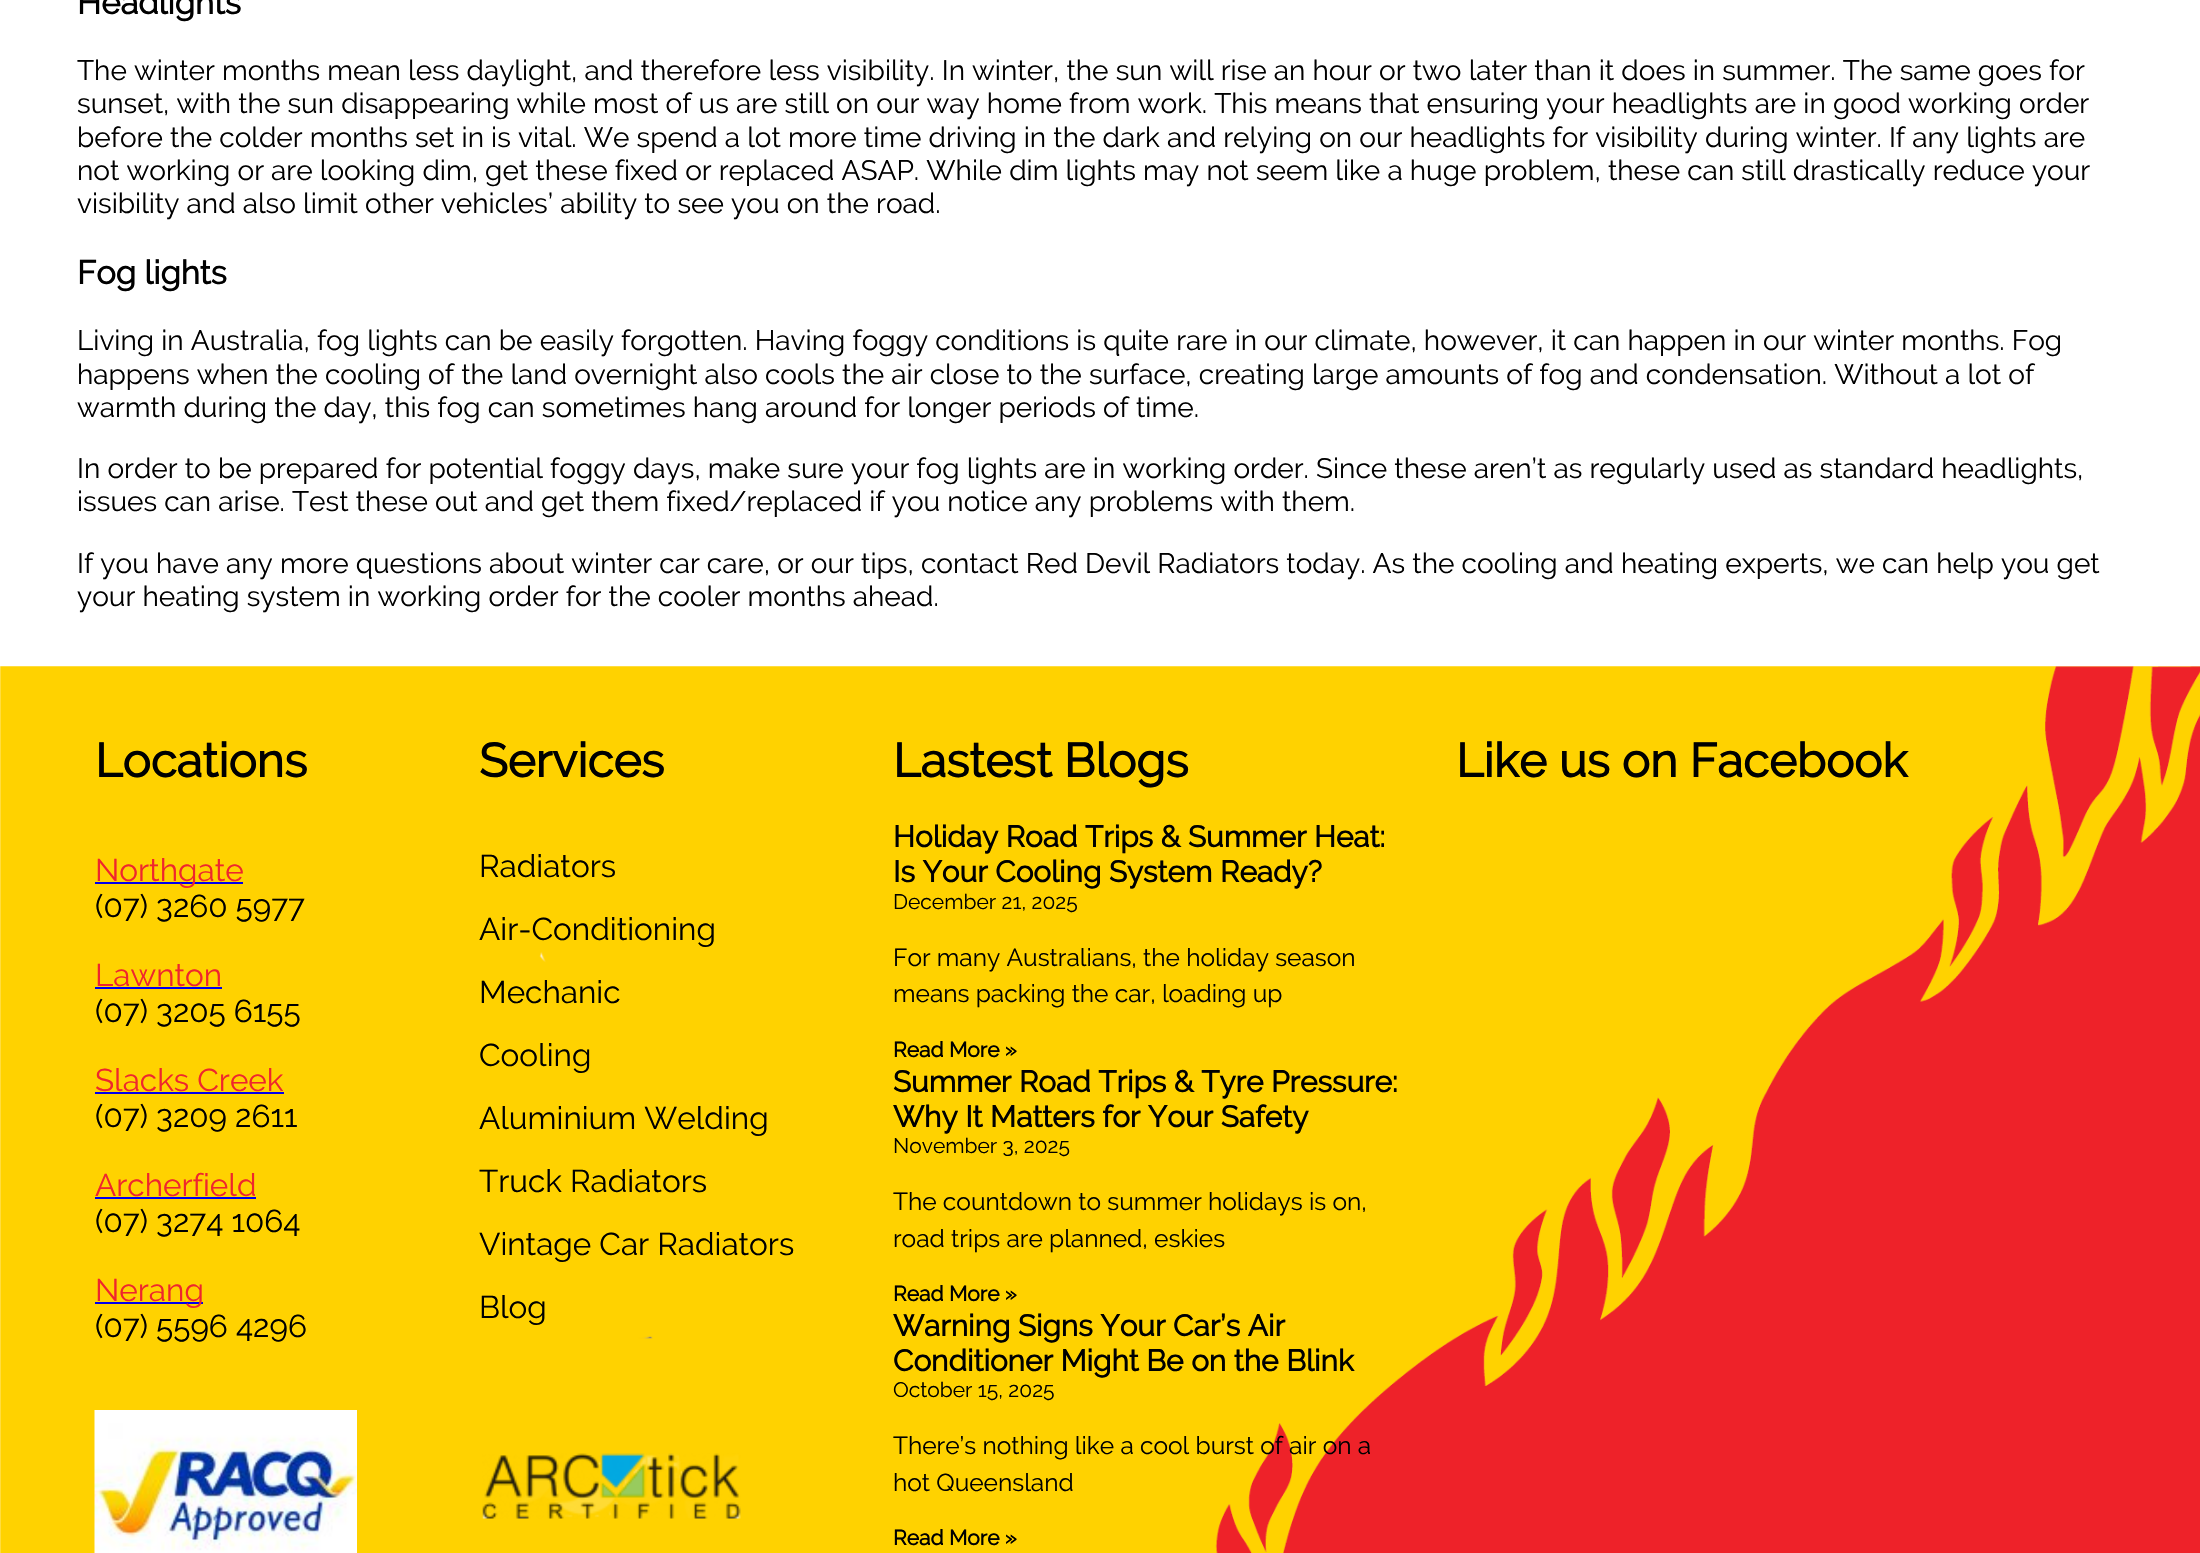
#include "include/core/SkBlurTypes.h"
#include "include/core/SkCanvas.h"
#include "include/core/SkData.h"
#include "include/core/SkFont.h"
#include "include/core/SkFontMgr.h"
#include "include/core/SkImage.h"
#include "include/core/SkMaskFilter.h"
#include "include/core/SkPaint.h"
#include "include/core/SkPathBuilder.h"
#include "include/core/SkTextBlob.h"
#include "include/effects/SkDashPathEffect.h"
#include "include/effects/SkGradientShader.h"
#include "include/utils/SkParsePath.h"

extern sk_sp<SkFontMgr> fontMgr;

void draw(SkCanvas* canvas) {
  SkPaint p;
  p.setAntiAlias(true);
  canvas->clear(SK_ColorWHITE);
  canvas->drawImageRect(SkImages::DeferredFromEncodedData(SkData::MakeFromFileName("images/1.png")), SkRect::MakeLTRB(0, 666, 2200, 1553), SkSamplingOptions());
  p.setColor(SkColorSetRGB(0, 0, 238));
  canvas->drawRect(SkRect::MakeLTRB(95, 882, 243, 884), p);
  canvas->drawRect(SkRect::MakeLTRB(95, 987, 222, 989), p);
  canvas->drawRect(SkRect::MakeLTRB(95, 1092, 284, 1094), p);
  canvas->drawRect(SkRect::MakeLTRB(95, 1197, 256, 1199), p);
  canvas->drawRect(SkRect::MakeLTRB(95, 1302, 203, 1304), p);
  canvas->drawImageRect(SkImages::DeferredFromEncodedData(SkData::MakeFromFileName("images/2.png")), SkRect::MakeLTRB(94, 1410, 357, 1553), SkSamplingOptions());
  canvas->drawImageRect(SkImages::DeferredFromEncodedData(SkData::MakeFromFileName("images/3.png")), SkRect::MakeLTRB(482, 1453, 741, 1519), SkSamplingOptions());
  SkFont font1(fontMgr->matchFamilyStyle("Raleway", SkFontStyle::Bold()), 32.75f);
  font1.setSubpixel(true);
  p.setColor(SK_ColorBLACK);
  canvas->drawString("Headlights", 77, 14, font1, p);
  SkFont font2(fontMgr->matchFamilyStyle("Raleway", SkFontStyle::Normal()), 28);
  font2.setSubpixel(true);
  canvas->drawString("The winter months mean less daylight, and therefore less visibility. In winter, the sun will rise an hour or two later than it does in summer. The same goes for", 77, 80, font2, p);
  canvas->drawString("sunset, with the sun disappearing while most of us are still on our way home from work. This means that ensuring your headlights are in good working order", 77, 113, font2, p);
  canvas->drawString("before the colder months set in is vital. We spend a lot more time driving in the dark and relying on our headlights for visibility during winter. If any lights are", 77, 147, font2, p);
  canvas->drawString("not working or are looking dim, get these fixed or replaced ASAP. While dim lights may not seem like a huge problem, these can still drastically reduce your", 77, 180, font2, p);
  canvas->drawString("visibility and also limit other vehicles’ ability to see you on the road.", 77, 213, font2, p);
  canvas->drawString("Fog lights", 77, 284, font1, p);
  canvas->drawString("Living in Australia, fog lights can be easily forgotten. Having foggy conditions is quite rare in our climate, however, it can happen in our winter months. Fog", 77, 350, font2, p);
  canvas->drawString("happens when the cooling of the land overnight also cools the air close to the surface, creating large amounts of fog and condensation. Without a lot of", 77, 384, font2, p);
  canvas->drawString("warmth during the day, this fog can sometimes hang around for longer periods of time.", 77, 417, font2, p);
  canvas->drawString("In order to be prepared for potential foggy days, make sure your fog lights are in working order. Since these aren’t as regularly used as standard headlights,", 77, 478, font2, p);
  canvas->drawString("issues can arise. Test these out and get them fixed/replaced if you notice any problems with them.", 77, 511, font2, p);
  canvas->drawString("If you have any more questions about winter car care, or our tips, contact Red Devil Radiators today. As the cooling and heating experts, we can help you get", 77, 573, font2, p);
  canvas->drawString("your heating system in working order for the cooler months ahead.", 77, 606, font2, p);
  SkFont font3(fontMgr->matchFamilyStyle("Raleway", SkFontStyle::Bold()), 47.25f);
  font3.setSubpixel(true);
  canvas->drawString("Locations", 95, 777, font3, p);
  SkFont font4(fontMgr->matchFamilyStyle("Raleway", SkFontStyle::Normal()), 31.5f);
  font4.setSubpixel(true);
  p.setColor(SkColorSetRGB(239, 38, 45));
  canvas->drawString("Northgate", 95, 881, font4, p);
  p.setColor(SK_ColorBLACK);
  canvas->drawString("(07) 3260 5977", 95, 917, font4, p);
  p.setColor(SkColorSetRGB(239, 38, 45));
  canvas->drawString("Lawnton", 95, 986, font4, p);
  p.setColor(SK_ColorBLACK);
  canvas->drawString("(07) 3205 6155", 95, 1022, font4, p);
  p.setColor(SkColorSetRGB(239, 38, 45));
  canvas->drawString("Slacks Creek", 95, 1091, font4, p);
  p.setColor(SK_ColorBLACK);
  canvas->drawString("(07) 3209 2611", 95, 1127, font4, p);
  p.setColor(SkColorSetRGB(239, 38, 45));
  canvas->drawString("Archerfield", 95, 1196, font4, p);
  p.setColor(SK_ColorBLACK);
  canvas->drawString("(07) 3274 1064", 95, 1232, font4, p);
  p.setColor(SkColorSetRGB(239, 38, 45));
  canvas->drawString("Nerang", 95, 1301, font4, p);
  p.setColor(SK_ColorBLACK);
  canvas->drawString("(07) 5596 4296", 95, 1337, font4, p);
  canvas->drawString("Services", 479, 777, font3, p);
  canvas->drawString("Radiators", 479, 877, font4, p);
  canvas->drawString("Air-Conditioning", 479, 940, font4, p);
  canvas->drawString("Mechanic", 479, 1003, font4, p);
  canvas->drawString("Cooling", 479, 1066, font4, p);
  canvas->drawString("Aluminium Welding", 479, 1129, font4, p);
  canvas->drawString("Truck Radiators", 479, 1192, font4, p);
  canvas->drawString("Vintage Car Radiators", 479, 1255, font4, p);
  canvas->drawString("Blog", 479, 1318, font4, p);
  canvas->drawString("Lastest Blogs", 893, 777, font3, p);
  SkFont font5(fontMgr->matchFamilyStyle("Raleway", SkFontStyle::Bold()), 29.75f);
  font5.setSubpixel(true);
  canvas->drawString("Holiday Road Trips & Summer Heat:", 893, 847, font5, p);
  canvas->drawString("Is Your Cooling System Ready?", 893, 882, font5, p);
  SkFont font6(fontMgr->matchFamilyStyle("Raleway", SkFontStyle::Normal()), 21);
  font6.setSubpixel(true);
  canvas->drawString("December 21, 2025", 893, 909, font6, p);
  SkFont font7(fontMgr->matchFamilyStyle("Raleway", SkFontStyle::Normal()), 24.5f);
  font7.setSubpixel(true);
  canvas->drawString("For many Australians, the holiday season", 893, 966, font7, p);
  canvas->drawString("means packing the car, loading up", 893, 1002, font7, p);
  SkFont font8(fontMgr->matchFamilyStyle("Raleway", SkFontStyle::Bold()), 21);
  font8.setSubpixel(true);
  canvas->drawString("Read More »", 893, 1057, font8, p);
  canvas->drawString("Summer Road Trips & Tyre Pressure:", 893, 1092, font5, p);
  canvas->drawString("Why It Matters for Your Safety", 893, 1127, font5, p);
  canvas->drawString("November 3, 2025", 893, 1153, font6, p);
  canvas->drawString("The countdown to summer holidays is on,", 893, 1210, font7, p);
  canvas->drawString("road trips are planned, eskies", 893, 1247, font7, p);
  canvas->drawString("Read More »", 893, 1301, font8, p);
  canvas->drawString("Warning Signs Your Car’s Air", 893, 1336, font5, p);
  canvas->drawString("Conditioner Might Be on the Blink", 893, 1371, font5, p);
  canvas->drawString("October 15, 2025", 893, 1397, font6, p);
  canvas->drawString("There’s nothing like a cool burst of air on a", 893, 1454, font7, p);
  canvas->drawString("hot Queensland", 893, 1491, font7, p);
  canvas->drawString("Read More »", 893, 1545, font8, p);
  canvas->drawString("Like us on Facebook", 1456, 777, font3, p);
}
